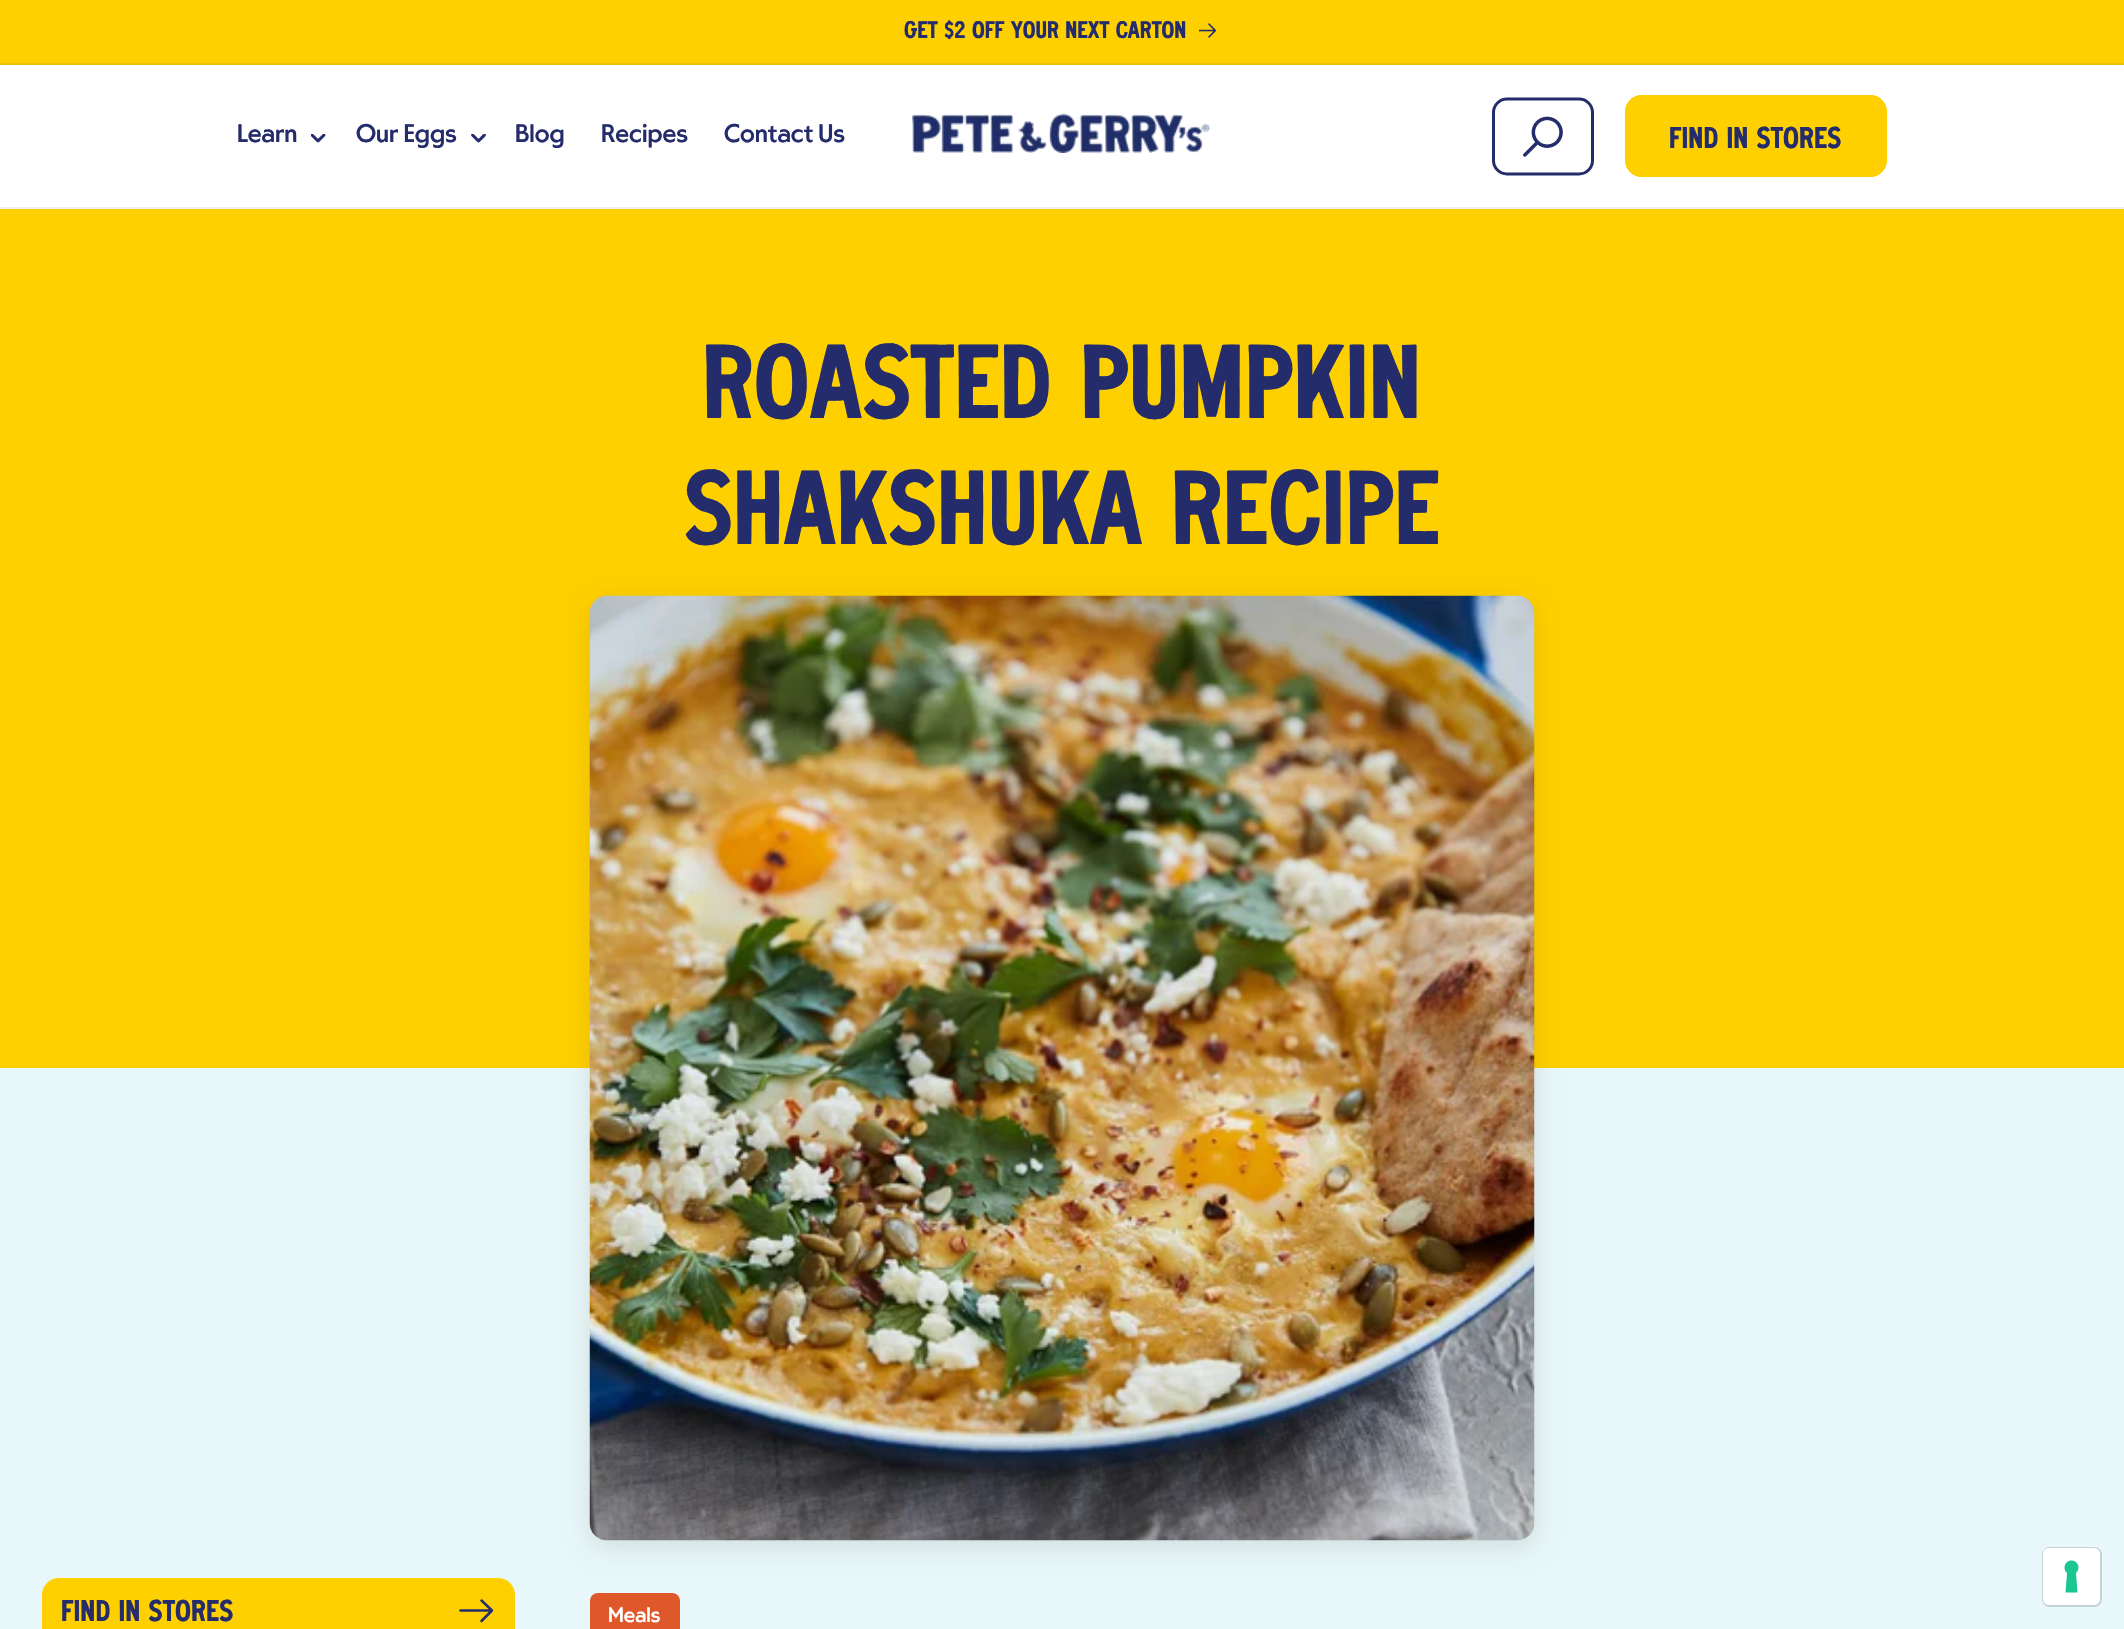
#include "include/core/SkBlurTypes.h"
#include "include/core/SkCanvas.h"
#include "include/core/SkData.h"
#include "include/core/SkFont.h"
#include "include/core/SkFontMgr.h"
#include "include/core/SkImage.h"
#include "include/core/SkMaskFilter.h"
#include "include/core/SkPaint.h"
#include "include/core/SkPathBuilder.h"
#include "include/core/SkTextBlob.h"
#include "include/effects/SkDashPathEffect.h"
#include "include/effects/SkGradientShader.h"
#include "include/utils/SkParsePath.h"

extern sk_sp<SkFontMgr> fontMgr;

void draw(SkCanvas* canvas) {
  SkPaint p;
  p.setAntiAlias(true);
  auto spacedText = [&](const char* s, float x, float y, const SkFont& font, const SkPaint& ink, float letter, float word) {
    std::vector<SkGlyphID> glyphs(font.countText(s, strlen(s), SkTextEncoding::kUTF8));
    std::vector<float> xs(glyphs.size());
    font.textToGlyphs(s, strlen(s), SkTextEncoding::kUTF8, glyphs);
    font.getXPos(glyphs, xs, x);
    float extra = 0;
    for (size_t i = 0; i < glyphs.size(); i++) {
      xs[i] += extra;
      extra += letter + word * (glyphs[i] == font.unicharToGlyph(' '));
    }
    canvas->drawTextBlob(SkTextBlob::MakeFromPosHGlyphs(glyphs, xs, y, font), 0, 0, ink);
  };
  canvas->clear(SK_ColorWHITE);
  p.setColor(SkColorSetRGB(255, 208, 0));
  canvas->drawRect(SkRect::MakeLTRB(0, 0, 2124, 63), p);
  p.setColor(SkColorSetRGB(237, 195, 9));
  canvas->drawRect(SkRect::MakeLTRB(0, 63, 2124, 65), p);
  canvas->drawImageRect(SkImages::DeferredFromEncodedData(SkData::MakeFromFileName("images/1.png")), SkRect::MakeLTRB(1199, 23, 1217, 38), SkSamplingOptions());
  p.setColor(SkColorSetRGB(237, 238, 243));
  canvas->drawRect(SkRect::MakeLTRB(0, 207, 2124, 209), p);
  canvas->drawImageRect(SkImages::DeferredFromEncodedData(SkData::MakeFromFileName("images/2.png")), SkRect::MakeLTRB(311, 134, 326, 143), SkSamplingOptions());
  canvas->drawImageRect(SkImages::DeferredFromEncodedData(SkData::MakeFromFileName("images/3.png")), SkRect::MakeLTRB(471, 134, 486, 143), SkSamplingOptions());
  canvas->drawImageRect(SkImages::DeferredFromEncodedData(SkData::MakeFromFileName("images/4.png")), SkRect::MakeLTRB(912, 113, 1211, 153), SkSamplingOptions());
  p.setStyle(SkPaint::kStroke_Style);
  p.setStrokeWidth(3);
  p.setColor(SkColorSetRGB(36, 44, 107));
  canvas->drawPath(SkPathBuilder().moveTo(1579, 99).lineTo(1507, 99).cubicTo(1499.5f, 99, 1493.5f, 105, 1493.5f, 112.5f).lineTo(1493.5f, 160.5f).cubicTo(1493.5f, 168, 1499.5f, 174, 1507, 174).lineTo(1579, 174).cubicTo(1586.5f, 174, 1592.5f, 168, 1592.5f, 160.5f).lineTo(1592.5f, 112.5f).cubicTo(1592.5f, 105, 1586.5f, 99, 1579, 99).close().detach(), p);
  canvas->drawImageRect(SkImages::DeferredFromEncodedData(SkData::MakeFromFileName("images/5.png")), SkRect::MakeLTRB(1523, 116, 1563, 157), SkSamplingOptions());
  p.setStyle(SkPaint::kFill_Style);
  p.setColor(SkColorSetRGB(255, 208, 0));
  canvas->drawRoundRect(SkRect::MakeLTRB(1625, 95, 1887, 177), 17, 17, p);
  p.setStyle(SkPaint::kStroke_Style);
  p.setStrokeWidth(2);
  canvas->drawRoundRect(SkRect::MakeLTRB(1626, 96, 1886, 176), 16, 16, p);
  p.setStyle(SkPaint::kFill_Style);
  p.setColor(SkColorSetRGB(232, 247, 249));
  canvas->drawRect(SkRect::MakeLTRB(0, 1068, 2124, 1629), p);
  p.setColor(SkColorSetRGB(255, 208, 0));
  canvas->drawRect(SkRect::MakeLTRB(0, 209, 2124, 1068), p);
  p.setColor(SkColorSetARGB(26, 0, 0, 0));
  p.setMaskFilter(SkMaskFilter::MakeBlur(kNormal_SkBlurStyle, 12));
  canvas->drawRoundRect(SkRect::MakeLTRB(590, 602, 1535, 1547), 18, 18, p);
  p.setMaskFilter(nullptr);
  canvas->drawImageRect(SkImages::DeferredFromEncodedData(SkData::MakeFromFileName("images/6.png")), SkRect::MakeLTRB(589, 595, 1535, 1541), SkSamplingOptions());
  p.setColor(SkColorSetRGB(255, 208, 0));
  canvas->drawRoundRect(SkRect::MakeLTRB(42, 1578, 515, 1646), 17, 17, p);
  p.setStyle(SkPaint::kStroke_Style);
  p.setStrokeWidth(2.5f);
  p.setStrokeCap(SkPaint::kRound_Cap);
  p.setStrokeJoin(SkPaint::kRound_Join);
  p.setColor(SkColorSetRGB(36, 44, 107));
  canvas->drawPath(SkPathBuilder().moveTo(481.5f, 1600.5f).lineTo(492, 1610.5f).lineTo(481.5f, 1621).moveTo(490.5f, 1610.5f).lineTo(460.5f, 1610.5f).detach(), p);
  p.setStyle(SkPaint::kFill_Style);
  p.setColor(SkColorSetRGB(223, 88, 41));
  canvas->drawRoundRect(SkRect::MakeLTRB(590, 1593, 680, 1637), 8, 8, p);
  p.setStyle(SkPaint::kStroke_Style);
  p.setStrokeWidth(2);
  p.setStrokeCap(SkPaint::kButt_Cap);
  p.setStrokeJoin(SkPaint::kMiter_Join);
  p.setColor(SkColorSetRGB(197, 210, 212));
  canvas->drawRoundRect(SkRect::MakeLTRB(2043, 1548, 2101, 1606), 7, 7, p);
  p.setStyle(SkPaint::kFill_Style);
  p.setColor(SK_ColorWHITE);
  canvas->drawRoundRect(SkRect::MakeLTRB(2043, 1548, 2100, 1605), 6, 6, p);
  p.setColor(SkColorSetRGB(28, 198, 145));
  canvas->drawPath(SkPathBuilder(SkPathFillType::kEvenOdd).moveTo(2071.5f, 1560.5f).cubicTo(2078, 1560.5f, 2081, 1568.5f, 2076, 1573).lineTo(2077.5f, 1592.5f).lineTo(2065.5f, 1592.5f).lineTo(2067, 1573).cubicTo(2062, 1568.5f, 2065, 1560.5f, 2071.5f, 1560.5f).close().detach(), p);
  SkFont font1(fontMgr->matchFamilyStyle("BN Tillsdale", SkFontStyle::Bold()), 24);
  font1.setSubpixel(true);
  p.setColor(SkColorSetRGB(36, 44, 107));
  canvas->drawString("GET $2 OFF YOUR NEXT CARTON", 904, 38, font1, p);
  SkFont font2(fontMgr->matchFamilyStyle("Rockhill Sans", SkFontStyle::Normal()), 25.5f);
  font2.setSubpixel(true);
  canvas->drawString("Learn", 237, 142, font2, p);
  canvas->drawString("Our Eggs", 356, 142, font2, p);
  canvas->drawString("Blog", 515, 142, font2, p);
  canvas->drawString("Recipes", 601, 142, font2, p);
  canvas->drawString("Contact Us", 724, 142, font2, p);
  SkFont font3(fontMgr->matchFamilyStyle("BN Tillsdale", SkFontStyle::Bold()), 30);
  font3.setSubpixel(true);
  spacedText("FIND IN STORES", 1669, 148, font3, p, 0.1f, 0);
  SkFont font4(fontMgr->matchFamilyStyle("BN Tillsdale", SkFontStyle::Bold()), 105);
  font4.setSubpixel(true);
  canvas->drawString("ROASTED PUMPKIN", 702, 418, font4, p);
  canvas->drawString("SHAKSHUKA RECIPE", 684, 544, font4, p);
  spacedText("FIND IN STORES", 61, 1621, font3, p, 0.1f, 0);
  SkFont font5(fontMgr->matchFamilyStyle("Rockhill Sans", SkFontStyle::Normal()), 21);
  font5.setSubpixel(true);
  p.setColor(SK_ColorWHITE);
  canvas->drawString("Meals", 608, 1622, font5, p);
}
